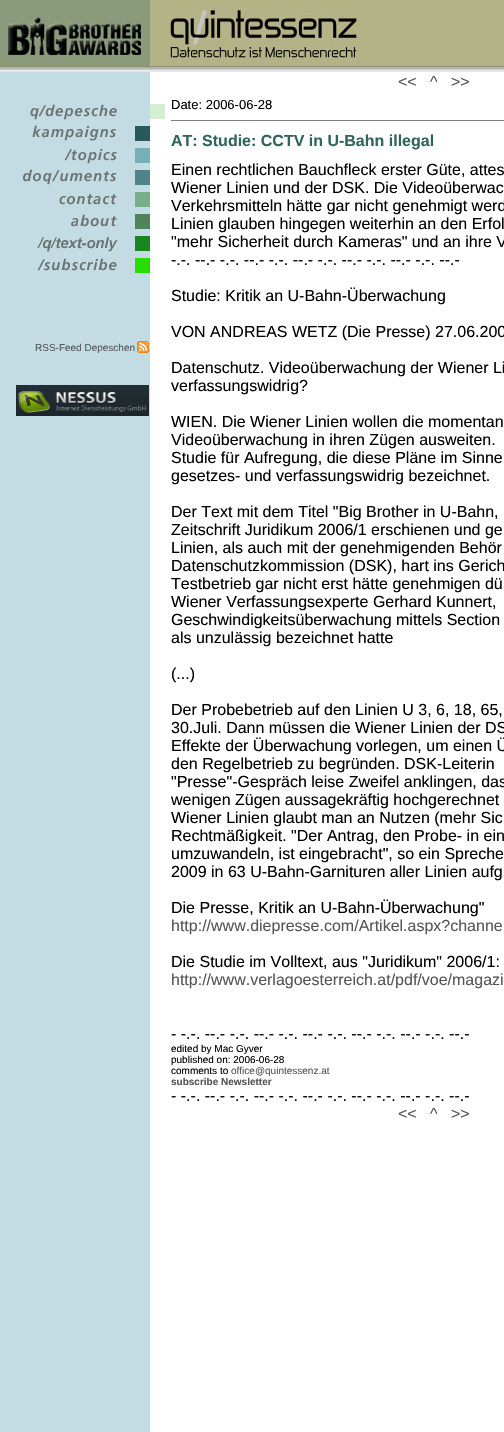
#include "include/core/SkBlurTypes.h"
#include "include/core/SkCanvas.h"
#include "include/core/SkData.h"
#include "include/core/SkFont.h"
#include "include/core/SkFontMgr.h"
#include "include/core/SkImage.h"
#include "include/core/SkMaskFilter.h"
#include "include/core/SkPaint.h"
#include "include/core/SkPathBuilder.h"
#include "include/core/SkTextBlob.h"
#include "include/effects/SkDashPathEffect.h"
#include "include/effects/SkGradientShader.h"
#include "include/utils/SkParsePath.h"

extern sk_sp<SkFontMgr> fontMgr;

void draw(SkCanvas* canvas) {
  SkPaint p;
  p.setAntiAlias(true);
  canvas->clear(SK_ColorWHITE);
  p.setColor(SkColorSetRGB(138, 154, 122));
  canvas->drawRect(SkRect::MakeLTRB(0, 0, 150, 66), p);
  p.setColor(SkColorSetRGB(179, 179, 134));
  canvas->drawRect(SkRect::MakeLTRB(150, 0, 504, 3), p);
  canvas->drawRect(SkRect::MakeLTRB(150, 3, 504, 66), p);
  canvas->drawImageRect(SkImages::DeferredFromEncodedData(SkData::MakeFromFileName("images/1.png")), SkRect::MakeLTRB(8, 16, 141, 55), SkSamplingOptions());
  canvas->drawImageRect(SkImages::DeferredFromEncodedData(SkData::MakeFromFileName("images/2.png")), SkRect::MakeLTRB(168, 6, 358, 63), SkSamplingOptions());
  p.setColor(SkColorSetRGB(145, 145, 111));
  canvas->drawRect(SkRect::MakeLTRB(0, 66, 504, 67), p);
  p.setColor(SkColorSetRGB(179, 179, 179));
  canvas->drawRect(SkRect::MakeLTRB(0, 67, 504, 69), p);
  p.setColor(SkColorSetRGB(205, 205, 205));
  canvas->drawRect(SkRect::MakeLTRB(0, 69, 504, 70), p);
  p.setColor(SkColorSetRGB(231, 231, 231));
  canvas->drawRect(SkRect::MakeLTRB(0, 70, 504, 72), p);
  p.setColor(SkColorSetRGB(195, 220, 227));
  canvas->drawRect(SkRect::MakeLTRB(0, 72, 150, 1432), p);
  canvas->drawImageRect(SkImages::DeferredFromEncodedData(SkData::MakeFromFileName("images/3.png")), SkRect::MakeLTRB(30, 104, 165, 120), SkSamplingOptions());
  canvas->drawImageRect(SkImages::DeferredFromEncodedData(SkData::MakeFromFileName("images/4.png")), SkRect::MakeLTRB(32, 125, 150, 141), SkSamplingOptions());
  canvas->drawImageRect(SkImages::DeferredFromEncodedData(SkData::MakeFromFileName("images/5.png")), SkRect::MakeLTRB(64, 148, 150, 164), SkSamplingOptions());
  canvas->drawImageRect(SkImages::DeferredFromEncodedData(SkData::MakeFromFileName("images/6.png")), SkRect::MakeLTRB(23, 169, 150, 185), SkSamplingOptions());
  canvas->drawImageRect(SkImages::DeferredFromEncodedData(SkData::MakeFromFileName("images/7.png")), SkRect::MakeLTRB(58, 192, 150, 207), SkSamplingOptions());
  canvas->drawImageRect(SkImages::DeferredFromEncodedData(SkData::MakeFromFileName("images/8.png")), SkRect::MakeLTRB(71, 214, 150, 229), SkSamplingOptions());
  canvas->drawImageRect(SkImages::DeferredFromEncodedData(SkData::MakeFromFileName("images/9.png")), SkRect::MakeLTRB(37, 236, 150, 252), SkSamplingOptions());
  canvas->drawImageRect(SkImages::DeferredFromEncodedData(SkData::MakeFromFileName("images/10.png")), SkRect::MakeLTRB(37, 258, 150, 273), SkSamplingOptions());
  canvas->drawImageRect(SkImages::DeferredFromEncodedData(SkData::MakeFromFileName("images/11.png")), SkRect::MakeLTRB(137, 341, 149, 353), SkSamplingOptions());
  canvas->drawImageRect(SkImages::DeferredFromEncodedData(SkData::MakeFromFileName("images/12.png")), SkRect::MakeLTRB(16, 385, 149, 416), SkSamplingOptions());
  p.setColor(SkColorSetRGB(128, 128, 128));
  canvas->drawRect(SkRect::MakeLTRB(171, 120, 504, 121), p);
  SkFont font1(fontMgr->matchFamilyStyle("Liberation Sans", SkFontStyle::Normal()), 10);
  font1.setSubpixel(true);
  p.setColor(SkColorSetRGB(86, 86, 86));
  canvas->drawString("RSS-Feed Depeschen", 35, 351, font1, p);
  SkFont font2(fontMgr->matchFamilyStyle("Liberation Sans", SkFontStyle::Normal()), 16);
  font2.setSubpixel(true);
  canvas->drawString("<<", 398, 87, font2, p);
  canvas->drawString("^", 430, 87, font2, p);
  canvas->drawString(">>", 451, 87, font2, p);
  SkFont font3(fontMgr->matchFamilyStyle("Liberation Sans", SkFontStyle::Normal()), 13);
  font3.setSubpixel(true);
  p.setColor(SK_ColorBLACK);
  canvas->drawString("Date: 2006-06-28", 171, 109, font3, p);
  SkFont font4(fontMgr->matchFamilyStyle("Liberation Sans", SkFontStyle::Bold()), 16);
  font4.setSubpixel(true);
  p.setColor(SkColorSetRGB(49, 100, 93));
  canvas->drawString("AT: Studie: CCTV in U-Bahn illegal", 171, 146, font4, p);
  p.setColor(SK_ColorBLACK);
  canvas->drawString("Einen rechtlichen Bauchfleck erster Güte, attes", 171, 175, font2, p);
  canvas->drawString("Wiener Linien und der DSK. Die Videoüberwac", 171, 193, font2, p);
  canvas->drawString("Verkehrsmitteln hätte gar nicht genehmigt werd", 171, 211, font2, p);
  canvas->drawString("Linien glauben hingegen weiterhin an den Erfol", 171, 229, font2, p);
  canvas->drawString("\"mehr Sicherheit durch Kameras\" und an ihre V", 171, 247, font2, p);
  canvas->drawString("-.-. --.- -.-. --.- -.-. --.- -.-. --.- -.-. --.- -.-. --.-", 171, 265, font2, p);
  canvas->drawString("Studie: Kritik an U-Bahn-Überwachung", 171, 301, font2, p);
  canvas->drawString("VON ANDREAS WETZ (Die Presse) 27.06.200", 171, 337, font2, p);
  canvas->drawString("Datenschutz. Videoüberwachung der Wiener Li", 171, 373, font2, p);
  canvas->drawString("verfassungswidrig?", 171, 391, font2, p);
  canvas->drawString("WIEN. Die Wiener Linien wollen die momentan", 171, 427, font2, p);
  canvas->drawString("Videoüberwachung in ihren Zügen ausweiten.", 171, 445, font2, p);
  canvas->drawString("Studie für Aufregung, die diese Pläne im Sinne", 171, 463, font2, p);
  canvas->drawString("gesetzes- und verfassungswidrig bezeichnet.", 171, 481, font2, p);
  canvas->drawString("Der Text mit dem Titel \"Big Brother in U-Bahn,", 171, 517, font2, p);
  canvas->drawString("Zeitschrift Juridikum 2006/1 erschienen und ge", 171, 535, font2, p);
  canvas->drawString("Linien, als auch mit der genehmigenden Behör", 171, 553, font2, p);
  canvas->drawString("Datenschutzkommission (DSK), hart ins Gerich", 171, 571, font2, p);
  canvas->drawString("Testbetrieb gar nicht erst hätte genehmigen dü", 171, 589, font2, p);
  canvas->drawString("Wiener Verfassungsexperte Gerhard Kunnert,", 171, 607, font2, p);
  canvas->drawString("Geschwindigkeitsüberwachung mittels Section", 171, 625, font2, p);
  canvas->drawString("als unzulässig bezeichnet hatte", 171, 643, font2, p);
  canvas->drawString("(...)", 171, 679, font2, p);
  canvas->drawString("Der Probebetrieb auf den Linien U 3, 6, 18, 65,", 171, 715, font2, p);
  canvas->drawString("30.Juli. Dann müssen die Wiener Linien der DS", 171, 733, font2, p);
  canvas->drawString("Effekte der Überwachung vorlegen, um einen Ü", 171, 751, font2, p);
  canvas->drawString("den Regelbetrieb zu begründen. DSK-Leiterin", 171, 769, font2, p);
  canvas->drawString("\"Presse\"-Gespräch leise Zweifel anklingen, das", 171, 787, font2, p);
  canvas->drawString("wenigen Zügen aussagekräftig hochgerechnet", 171, 805, font2, p);
  canvas->drawString("Wiener Linien glaubt man an Nutzen (mehr Sic", 171, 823, font2, p);
  canvas->drawString("Rechtmäßigkeit. \"Der Antrag, den Probe- in ein", 171, 841, font2, p);
  canvas->drawString("umzuwandeln, ist eingebracht\", so ein Spreche", 171, 859, font2, p);
  canvas->drawString("2009 in 63 U-Bahn-Garnituren aller Linien aufg", 171, 877, font2, p);
  canvas->drawString("Die Presse, Kritik an U-Bahn-Überwachung\"", 171, 913, font2, p);
  p.setColor(SkColorSetRGB(86, 86, 86));
  canvas->drawString("http://www.diepresse.com/Artikel.aspx?channe", 171, 931, font2, p);
  p.setColor(SK_ColorBLACK);
  canvas->drawString("Die Studie im Volltext, aus \"Juridikum\" 2006/1:", 171, 967, font2, p);
  p.setColor(SkColorSetRGB(86, 86, 86));
  canvas->drawString("http://www.verlagoesterreich.at/pdf/voe/magazi", 171, 985, font2, p);
  p.setColor(SK_ColorBLACK);
  canvas->drawString("- -.-. --.- -.-. --.- -.-. --.- -.-. --.- -.-. --.- -.-. --.-", 171, 1039, font2, p);
  canvas->drawString("edited by Mac Gyver", 171, 1052, font1, p);
  canvas->drawString("published on: 2006-06-28", 171, 1063, font1, p);
  canvas->drawString("comments to", 171, 1074, font1, p);
  p.setColor(SkColorSetRGB(86, 86, 86));
  canvas->drawString("office@quintessenz.at", 231, 1074, font1, p);
  SkFont font5(fontMgr->matchFamilyStyle("Liberation Sans", SkFontStyle::Bold()), 10);
  font5.setSubpixel(true);
  canvas->drawString("subscribe Newsletter", 171, 1085, font5, p);
  p.setColor(SK_ColorBLACK);
  canvas->drawString("- -.-. --.- -.-. --.- -.-. --.- -.-. --.- -.-. --.- -.-. --.-", 171, 1101, font2, p);
  p.setColor(SkColorSetRGB(86, 86, 86));
  canvas->drawString("<<", 398, 1119, font2, p);
  canvas->drawString("^", 430, 1119, font2, p);
  canvas->drawString(">>", 451, 1119, font2, p);
}
